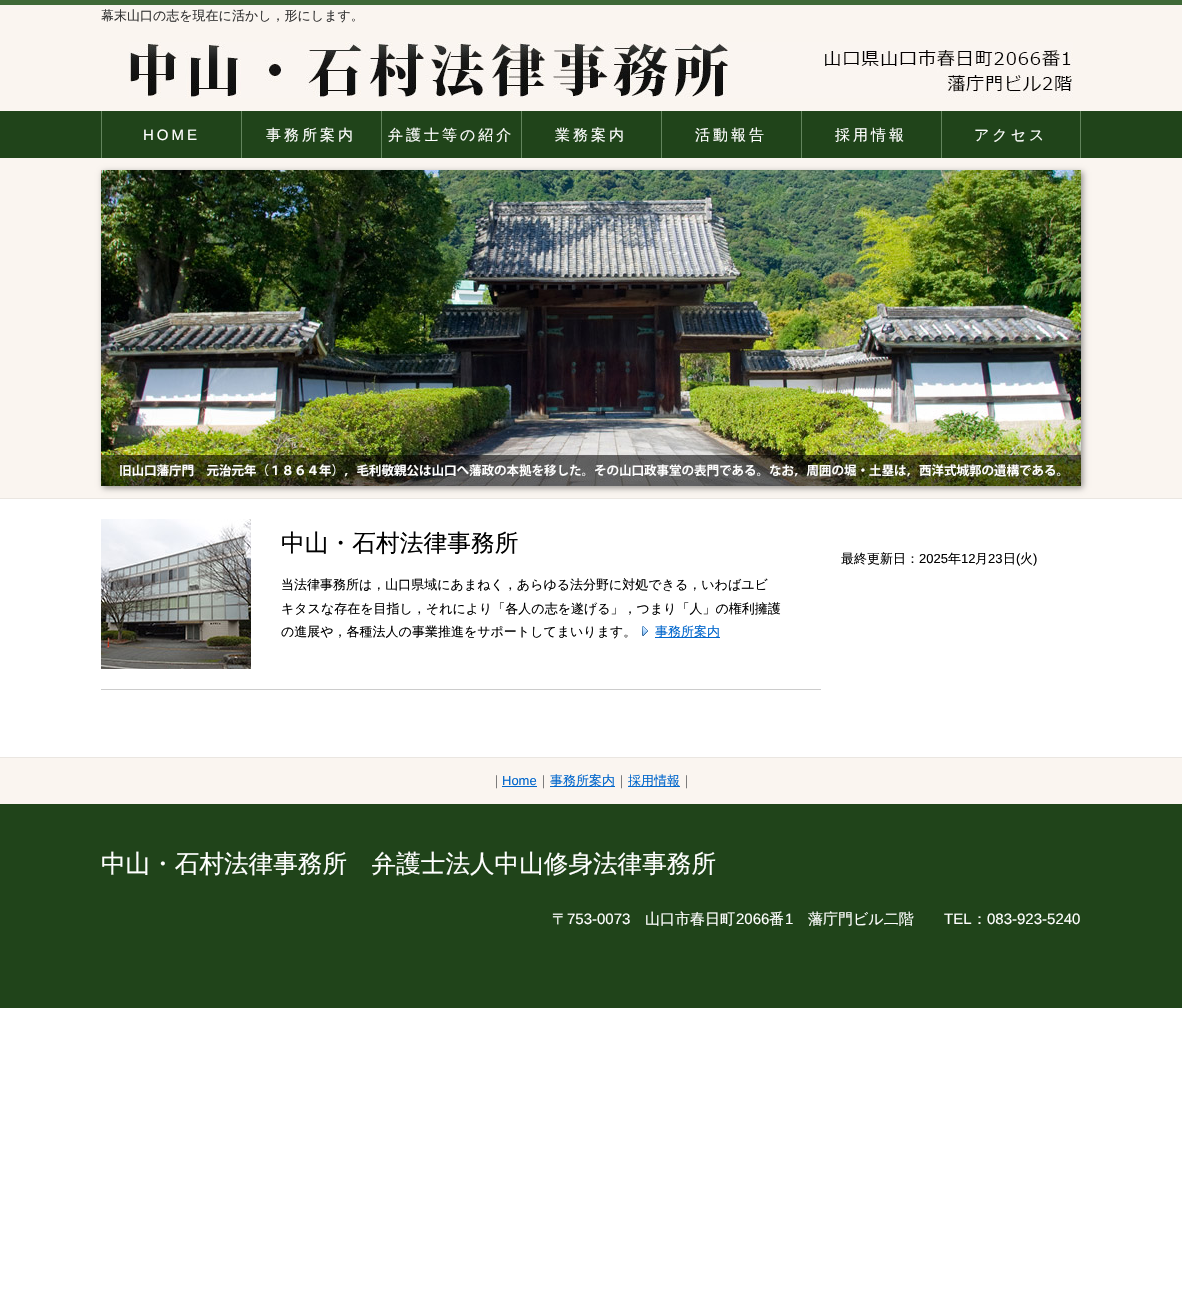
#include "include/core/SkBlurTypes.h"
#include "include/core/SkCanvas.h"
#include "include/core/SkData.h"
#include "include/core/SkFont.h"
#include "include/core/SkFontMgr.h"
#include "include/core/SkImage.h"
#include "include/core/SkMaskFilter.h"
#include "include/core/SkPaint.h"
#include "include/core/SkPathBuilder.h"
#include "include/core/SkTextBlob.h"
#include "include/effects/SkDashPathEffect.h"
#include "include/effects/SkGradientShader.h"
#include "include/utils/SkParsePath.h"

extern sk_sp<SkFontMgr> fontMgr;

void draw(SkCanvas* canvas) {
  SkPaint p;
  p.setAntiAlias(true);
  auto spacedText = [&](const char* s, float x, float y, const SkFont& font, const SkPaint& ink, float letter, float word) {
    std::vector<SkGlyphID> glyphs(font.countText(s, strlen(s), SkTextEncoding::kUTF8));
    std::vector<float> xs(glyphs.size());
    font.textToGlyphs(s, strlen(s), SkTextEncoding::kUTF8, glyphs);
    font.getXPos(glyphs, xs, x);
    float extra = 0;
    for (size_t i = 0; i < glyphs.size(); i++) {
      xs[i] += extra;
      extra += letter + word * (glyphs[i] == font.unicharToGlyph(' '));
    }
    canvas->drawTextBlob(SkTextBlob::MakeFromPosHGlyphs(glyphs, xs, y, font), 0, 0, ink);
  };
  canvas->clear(SK_ColorWHITE);
  p.setColor(SkColorSetRGB(250, 245, 240));
  canvas->drawRect(SkRect::MakeLTRB(0, 5, 1182, 111), p);
  p.setColor(SkColorSetRGB(63, 105, 56));
  canvas->drawRect(SkRect::MakeLTRB(0, 0, 1182, 5), p);
  canvas->drawImageRect(SkImages::DeferredFromEncodedData(SkData::MakeFromFileName("images/1.png")), SkRect::MakeLTRB(129, 42, 1073, 98), SkSamplingOptions());
  p.setColor(SkColorSetRGB(32, 68, 26));
  canvas->drawRect(SkRect::MakeLTRB(0, 111, 1182, 158), p);
  p.setColor(SkColorSetRGB(98, 132, 92));
  canvas->drawRect(SkRect::MakeLTRB(101, 111, 102, 158), p);
  canvas->drawRect(SkRect::MakeLTRB(241, 111, 242, 158), p);
  canvas->drawRect(SkRect::MakeLTRB(381, 111, 382, 158), p);
  canvas->drawRect(SkRect::MakeLTRB(521, 111, 522, 158), p);
  canvas->drawRect(SkRect::MakeLTRB(661, 111, 662, 158), p);
  canvas->drawRect(SkRect::MakeLTRB(801, 111, 802, 158), p);
  canvas->drawRect(SkRect::MakeLTRB(1080, 111, 1081, 158), p);
  canvas->drawRect(SkRect::MakeLTRB(941, 111, 942, 158), p);
  p.setColor(SkColorSetRGB(250, 245, 240));
  canvas->drawRect(SkRect::MakeLTRB(0, 158, 1182, 498), p);
  p.setColor(SkColorSetRGB(234, 230, 225));
  canvas->drawRect(SkRect::MakeLTRB(0, 498, 1182, 499), p);
  p.setColor(SkColorSetARGB(102, 0, 0, 0));
  p.setMaskFilter(SkMaskFilter::MakeBlur(kNormal_SkBlurStyle, 3));
  canvas->drawRect(SkRect::MakeLTRB(103, 172, 1083, 488), p);
  p.setMaskFilter(nullptr);
  canvas->drawImageRect(SkImages::DeferredFromEncodedData(SkData::MakeFromFileName("images/2.png")), SkRect::MakeLTRB(101, 170, 1081, 486), SkSamplingOptions());
  canvas->drawImageRect(SkImages::DeferredFromEncodedData(SkData::MakeFromFileName("images/3.png")), SkRect::MakeLTRB(101, 519, 251, 669), SkSamplingOptions());
  canvas->drawImageRect(SkImages::DeferredFromEncodedData(SkData::MakeFromFileName("images/4.png")), SkRect::MakeLTRB(642, 626, 648, 636), SkSamplingOptions());
  p.setColor(SkColorSetRGB(0, 102, 204));
  canvas->drawRect(SkRect::MakeLTRB(655, 637, 720, 638), p);
  p.setColor(SkColorSetRGB(204, 204, 204));
  canvas->drawRect(SkRect::MakeLTRB(101, 689, 821, 690), p);
  p.setColor(SkColorSetRGB(250, 245, 240));
  canvas->drawRect(SkRect::MakeLTRB(0, 758, 1182, 804), p);
  p.setColor(SkColorSetRGB(234, 230, 225));
  canvas->drawRect(SkRect::MakeLTRB(0, 757, 1182, 758), p);
  p.setColor(SkColorSetRGB(0, 102, 204));
  canvas->drawRect(SkRect::MakeLTRB(502, 786, 537, 787), p);
  canvas->drawRect(SkRect::MakeLTRB(550, 786, 615, 787), p);
  canvas->drawRect(SkRect::MakeLTRB(628, 786, 680, 787), p);
  p.setColor(SkColorSetRGB(32, 68, 26));
  canvas->drawRect(SkRect::MakeLTRB(0, 804, 1182, 1008), p);
  SkFont font1(fontMgr->matchFamilyStyle("WenQuanYi Zen Hei", SkFontStyle(500, SkFontStyle::kNormal_Width, SkFontStyle::kUpright_Slant)), 13);
  font1.setSubpixel(true);
  p.setColor(SkColorSetRGB(51, 51, 51));
  canvas->drawString("幕末山口の志を現在に活かし，形にします。", 101, 20, font1, p);
  SkFont font2(fontMgr->matchFamilyStyle("Liberation Sans", SkFontStyle::Normal()), 15);
  font2.setSubpixel(true);
  p.setColor(SK_ColorWHITE);
  spacedText("HOME", 143, 140, font2, p, 3, 0);
  SkFont font3(fontMgr->matchFamilyStyle("WenQuanYi Zen Hei", SkFontStyle(500, SkFontStyle::kNormal_Width, SkFontStyle::kUpright_Slant)), 15);
  font3.setSubpixel(true);
  spacedText("事務所案内", 266, 140, font3, p, 3, 0);
  spacedText("弁護士等の紹介", 388, 140, font3, p, 3, 0);
  spacedText("業務案内", 555, 140, font3, p, 3, 0);
  spacedText("活動報告", 695, 140, font3, p, 3, 0);
  spacedText("採用情報", 835, 140, font3, p, 3, 0);
  spacedText("アクセス", 974, 140, font3, p, 3, 0);
  SkFont font4(fontMgr->matchFamilyStyle("WenQuanYi Zen Hei", SkFontStyle(500, SkFontStyle::kNormal_Width, SkFontStyle::kUpright_Slant)), 23.75f);
  font4.setSubpixel(true);
  p.setColor(SK_ColorBLACK);
  canvas->drawString("中山・石村法律事務所", 281, 551, font4, p);
  canvas->drawString("当法律事務所は，山口県域にあまねく，あらゆる法分野に対処できる，いわばユビ", 281, 589, font1, p);
  canvas->drawString("キタスな存在を目指し，それにより「各人の志を遂げる」，つまり「人」の権利擁護", 281, 613, font1, p);
  canvas->drawString("の進展や，各種法人の事業推進をサポートしてまいります。", 281, 636, font1, p);
  p.setColor(SkColorSetRGB(0, 102, 204));
  canvas->drawString("事務所案内", 655, 636, font1, p);
  p.setColor(SK_ColorBLACK);
  canvas->drawString("最終更新日：", 841, 563, font1, p);
  SkFont font5(fontMgr->matchFamilyStyle("Liberation Sans", SkFontStyle::Normal()), 13);
  font5.setSubpixel(true);
  canvas->drawString("2025", 919, 563, font5, p);
  canvas->drawString("年", 948, 563, font1, p);
  canvas->drawString("12", 961, 563, font5, p);
  canvas->drawString("月", 975, 563, font1, p);
  canvas->drawString("23", 988, 563, font5, p);
  canvas->drawString("日", 1003, 563, font1, p);
  canvas->drawString("(", 1016, 563, font5, p);
  canvas->drawString("火", 1020, 563, font1, p);
  canvas->drawString(")", 1033, 563, font5, p);
  p.setColor(SkColorSetRGB(102, 102, 102));
  canvas->drawString("｜", 490, 785, font1, p);
  p.setColor(SkColorSetRGB(0, 102, 204));
  canvas->drawString("Home", 502, 785, font5, p);
  p.setColor(SkColorSetRGB(102, 102, 102));
  canvas->drawString("｜", 537, 785, font1, p);
  p.setColor(SkColorSetRGB(0, 102, 204));
  canvas->drawString("事務所案内", 550, 785, font1, p);
  p.setColor(SkColorSetRGB(102, 102, 102));
  canvas->drawString("｜", 615, 785, font1, p);
  p.setColor(SkColorSetRGB(0, 102, 204));
  canvas->drawString("採用情報", 628, 785, font1, p);
  p.setColor(SkColorSetRGB(102, 102, 102));
  canvas->drawString("｜", 680, 785, font1, p);
  SkFont font6(fontMgr->matchFamilyStyle("WenQuanYi Zen Hei", SkFontStyle(500, SkFontStyle::kNormal_Width, SkFontStyle::kUpright_Slant)), 24.6f);
  font6.setSubpixel(true);
  p.setColor(SK_ColorWHITE);
  canvas->drawString("中山・石村法律事務所　弁護士法人中山修身法律事務所", 101, 872, font6, p);
  canvas->drawString("〒", 552, 924, font3, p);
  canvas->drawString("753-0073", 567, 924, font2, p);
  canvas->drawString("山口市春日町", 645, 924, font3, p);
  canvas->drawString("2066", 736, 924, font2, p);
  canvas->drawString("番", 769, 924, font3, p);
  canvas->drawString("1", 785, 924, font2, p);
  canvas->drawString("藩庁門ビル二階", 808, 924, font3, p);
  canvas->drawString("TEL", 944, 924, font2, p);
  canvas->drawString("：", 972, 924, font3, p);
  canvas->drawString("083-923-5240", 987, 924, font2, p);
}
